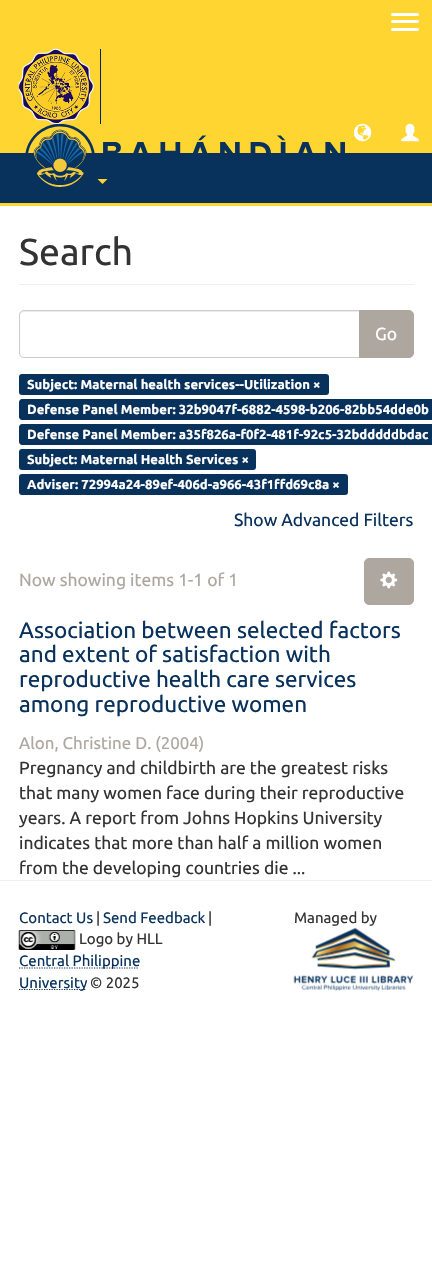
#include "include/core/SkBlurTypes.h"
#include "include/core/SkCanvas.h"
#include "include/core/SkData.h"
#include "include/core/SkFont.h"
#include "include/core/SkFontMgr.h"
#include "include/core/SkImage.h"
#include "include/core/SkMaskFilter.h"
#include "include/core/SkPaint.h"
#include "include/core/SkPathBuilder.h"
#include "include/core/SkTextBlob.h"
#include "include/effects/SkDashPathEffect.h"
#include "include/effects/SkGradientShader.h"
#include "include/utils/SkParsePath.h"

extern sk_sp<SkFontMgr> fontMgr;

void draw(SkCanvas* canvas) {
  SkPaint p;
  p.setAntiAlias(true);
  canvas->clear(SK_ColorWHITE);
  p.setColor(SkColorSetRGB(254, 213, 49));
  canvas->drawRect(SkRect::MakeLTRB(0, 0, 432, 153), p);
  p.setColor(SK_ColorWHITE);
  canvas->drawRoundRect(SkRect::MakeLTRB(391, 13, 419, 16), 1.5f, 1.5f, p);
  canvas->drawRoundRect(SkRect::MakeLTRB(391, 20, 419, 23), 1.5f, 1.5f, p);
  canvas->drawRoundRect(SkRect::MakeLTRB(391, 28, 419, 31), 1.5f, 1.5f, p);
  canvas->drawImageRect(SkImages::DeferredFromEncodedData(SkData::MakeFromFileName("images/1.png")), SkRect::MakeLTRB(18, 48, 94, 124), SkSamplingOptions());
  p.setColor(SkColorSetRGB(0, 33, 71));
  canvas->drawRect(SkRect::MakeLTRB(100, 49, 101, 124), p);
  p.setColor(SkColorSetRGB(8, 49, 92));
  canvas->drawRect(SkRect::MakeLTRB(0, 153, 432, 203), p);
  p.setColor(SkColorSetRGB(254, 213, 49));
  canvas->drawPath(SkPathBuilder().moveTo(97.5f, 179).lineTo(107.5f, 179).lineTo(102.5f, 184).close().detach(), p);
  canvas->drawImageRect(SkImages::DeferredFromEncodedData(SkData::MakeFromFileName("images/2.png")), SkRect::MakeLTRB(25, 124, 345, 187), SkSamplingOptions());
  canvas->drawImageRect(SkImages::DeferredFromEncodedData(SkData::MakeFromFileName("images/3.png")), SkRect::MakeLTRB(353, 123, 372, 142), SkSamplingOptions());
  canvas->drawImageRect(SkImages::DeferredFromEncodedData(SkData::MakeFromFileName("images/4.png")), SkRect::MakeLTRB(401, 123, 419, 142), SkSamplingOptions());
  canvas->drawRect(SkRect::MakeLTRB(0, 203, 432, 206), p);
  p.setColor(SkColorSetRGB(238, 238, 238));
  canvas->drawRect(SkRect::MakeLTRB(19, 284, 414, 285), p);
  p.setColor(SkColorSetRGB(236, 236, 236));
  canvas->drawPath(SkPathBuilder().moveTo(24, 312).lineTo(359, 312).lineTo(359, 311).lineTo(24, 311).cubicTo(21, 311, 20, 313, 20, 316).cubicTo(20, 314, 22, 312, 24, 312).close().detach(), p);
  p.setStyle(SkPaint::kStroke_Style);
  p.setStrokeWidth(1);
  p.setColor(SkColorSetRGB(204, 204, 204));
  canvas->drawPath(SkPathBuilder().moveTo(24, 310.5f).lineTo(359.5f, 310.5f).lineTo(359.5f, 357.5f).lineTo(24, 357.5f).cubicTo(21.5f, 357.5f, 19.5f, 355.5f, 19.5f, 353).lineTo(19.5f, 315).cubicTo(19.5f, 312.5f, 21.5f, 310.5f, 24, 310.5f).close().detach(), p);
  p.setStyle(SkPaint::kFill_Style);
  p.setColor(SkColorSetRGB(174, 167, 159));
  canvas->drawPath(SkPathBuilder().moveTo(359.5f, 310.5f).lineTo(409, 310.5f).cubicTo(411.5f, 310.5f, 413.5f, 312.5f, 413.5f, 315).lineTo(413.5f, 353).cubicTo(413.5f, 355.5f, 411.5f, 357.5f, 409, 357.5f).lineTo(359.5f, 357.5f).close().detach(), p);
  p.setStyle(SkPaint::kStroke_Style);
  canvas->drawPath(SkPathBuilder().moveTo(359.5f, 310.5f).lineTo(409, 310.5f).cubicTo(411.5f, 310.5f, 413.5f, 312.5f, 413.5f, 315).lineTo(413.5f, 353).cubicTo(413.5f, 355.5f, 411.5f, 357.5f, 409, 357.5f).lineTo(359.5f, 357.5f).close().detach(), p);
  p.setStyle(SkPaint::kFill_Style);
  p.setColor(SkColorSetRGB(8, 49, 92));
  canvas->drawRoundRect(SkRect::MakeLTRB(19, 374, 329, 395), 3, 3, p);
  canvas->drawPath(SkPathBuilder().moveTo(22, 399).lineTo(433, 399).lineTo(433, 420).lineTo(22, 420).cubicTo(20.5f, 420, 19, 418.5f, 19, 417).lineTo(19, 402).cubicTo(19, 400.5f, 20.5f, 399, 22, 399).close().detach(), p);
  canvas->drawPath(SkPathBuilder().moveTo(22, 424).lineTo(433, 424).lineTo(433, 445).lineTo(22, 445).cubicTo(20.5f, 445, 19, 443.5f, 19, 442).lineTo(19, 427).cubicTo(19, 425.5f, 20.5f, 424, 22, 424).close().detach(), p);
  canvas->drawRoundRect(SkRect::MakeLTRB(19, 449, 256, 470), 3, 3, p);
  canvas->drawRoundRect(SkRect::MakeLTRB(19, 474, 348, 495), 3, 3, p);
  p.setColor(SkColorSetRGB(174, 167, 159));
  canvas->drawRoundRect(SkRect::MakeLTRB(364.5f, 558.5f, 413.5f, 604.5f), 4.5f, 4.5f, p);
  p.setStyle(SkPaint::kStroke_Style);
  canvas->drawRoundRect(SkRect::MakeLTRB(364.5f, 558.5f, 413.5f, 604.5f), 4.5f, 4.5f, p);
  canvas->drawImageRect(SkImages::DeferredFromEncodedData(SkData::MakeFromFileName("images/5.png")), SkRect::MakeLTRB(380, 571, 398, 589), SkSamplingOptions());
  p.setStyle(SkPaint::kFill_Style);
  p.setColor(SkColorSetRGB(238, 238, 238));
  canvas->drawRect(SkRect::MakeLTRB(0, 880, 432, 881), p);
  canvas->drawImageRect(SkImages::DeferredFromEncodedData(SkData::MakeFromFileName("images/6.png")), SkRect::MakeLTRB(18, 930, 76, 950), SkSamplingOptions());
  p.setStyle(SkPaint::kStroke_Style);
  p.setStrokeWidth(1.2f);
  p.setColor(SkColorSetRGB(8, 49, 92));
  p.setPathEffect(SkDashPathEffect::Make({{1.25f, 1.25f}}, 0));
  canvas->drawPath(SkPathBuilder().moveTo(19, 968).lineTo(139, 968).detach(), p);
  p.setPathEffect(nullptr);
  p.setPathEffect(SkDashPathEffect::Make({{1.25f, 1.25f}}, 0));
  canvas->drawPath(SkPathBuilder().moveTo(19, 989.5f).lineTo(86.5f, 989.5f).detach(), p);
  p.setPathEffect(nullptr);
  canvas->drawImageRect(SkImages::DeferredFromEncodedData(SkData::MakeFromFileName("images/7.png")), SkRect::MakeLTRB(293, 927, 414, 991), SkSamplingOptions());
  SkFont font1(fontMgr->matchFamilyStyle("Ubuntu", SkFontStyle::Normal()), 37.5f);
  font1.setSubpixel(true);
  p.setStyle(SkPaint::kFill_Style);
  p.setColor(SkColorSetRGB(51, 51, 51));
  canvas->drawString("Search", 19, 265, font1, p);
  SkFont font2(fontMgr->matchFamilyStyle("Ubuntu", SkFontStyle::Normal()), 17.5f);
  font2.setSubpixel(true);
  p.setColor(SK_ColorWHITE);
  canvas->drawString("Go", 375, 340, font2, p);
  SkFont font3(fontMgr->matchFamilyStyle("Ubuntu", SkFontStyle::Bold()), 13.1f);
  font3.setSubpixel(true);
  canvas->drawString("Subject: Maternal health services--Utilization ×", 27, 389, font3, p);
  canvas->drawString("Defense Panel Member: 32b9047f-6882-4598-b206-82bb54dde0b", 27, 414, font3, p);
  canvas->drawString("Defense Panel Member: a35f826a-f0f2-481f-92c5-32bdddddbdac", 27, 439, font3, p);
  canvas->drawString("Subject: Maternal Health Services ×", 27, 464, font3, p);
  canvas->drawString("Adviser: 72994a24-89ef-406d-a966-43f1ffd69c8a ×", 27, 489, font3, p);
  p.setColor(SkColorSetRGB(8, 49, 92));
  canvas->drawString("Show Advanced Filters", 234, 526, font2, p);
  p.setColor(SkColorSetRGB(174, 167, 159));
  canvas->drawString("Now showing items 1-1 of 1", 19, 586, font2, p);
  SkFont font4(fontMgr->matchFamilyStyle("Ubuntu", SkFontStyle::Normal()), 22.5f);
  font4.setSubpixel(true);
  p.setColor(SkColorSetRGB(8, 49, 92));
  canvas->drawString("Association between selected factors", 19, 638, font4, p);
  canvas->drawString("and extent of satisfaction with", 19, 662, font4, p);
  canvas->drawString("reproductive health care services", 19, 687, font4, p);
  canvas->drawString("among reproductive women", 19, 712, font4, p);
  SkFont font5(fontMgr->matchFamilyStyle("Ubuntu", SkFontStyle::Normal()), 16.9f);
  font5.setSubpixel(true);
  p.setColor(SkColorSetRGB(174, 167, 159));
  canvas->drawString("Alon, Christine D. (2004)", 19, 749, font5, p);
  p.setColor(SkColorSetRGB(51, 51, 51));
  canvas->drawString("Pregnancy and childbirth are the greatest risks", 19, 774, font2, p);
  canvas->drawString("that many women face during their reproductive", 19, 799, font2, p);
  canvas->drawString("years. A report from Johns Hopkins University", 19, 824, font2, p);
  canvas->drawString("indicates that more than half a million women", 19, 849, font2, p);
  canvas->drawString("from the developing countries die ...", 19, 874, font2, p);
  SkFont font6(fontMgr->matchFamilyStyle("Ubuntu", SkFontStyle::Normal()), 15);
  font6.setSubpixel(true);
  p.setColor(SkColorSetRGB(8, 49, 92));
  canvas->drawString("Contact Us", 19, 923, font6, p);
  p.setColor(SkColorSetRGB(51, 51, 51));
  canvas->drawString("|", 96, 923, font6, p);
  p.setColor(SkColorSetRGB(8, 49, 92));
  canvas->drawString("Send Feedback", 103, 923, font6, p);
  p.setColor(SkColorSetRGB(51, 51, 51));
  canvas->drawString("|", 208, 923, font6, p);
  canvas->drawString("Logo by HLL", 79, 944, font6, p);
  p.setColor(SkColorSetRGB(8, 49, 92));
  canvas->drawString("Central Philippine", 19, 966, font6, p);
  canvas->drawString("University", 19, 988, font6, p);
  p.setColor(SkColorSetRGB(51, 51, 51));
  canvas->drawString("© 2025", 90, 988, font6, p);
  canvas->drawString("Managed by", 294, 923, font6, p);
}
